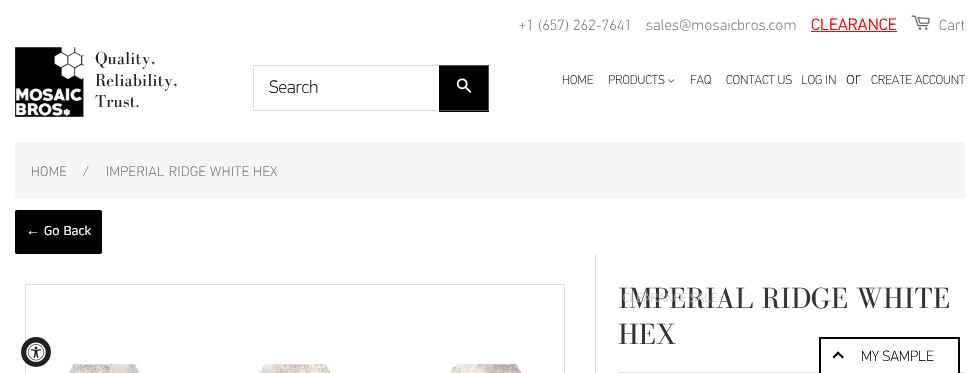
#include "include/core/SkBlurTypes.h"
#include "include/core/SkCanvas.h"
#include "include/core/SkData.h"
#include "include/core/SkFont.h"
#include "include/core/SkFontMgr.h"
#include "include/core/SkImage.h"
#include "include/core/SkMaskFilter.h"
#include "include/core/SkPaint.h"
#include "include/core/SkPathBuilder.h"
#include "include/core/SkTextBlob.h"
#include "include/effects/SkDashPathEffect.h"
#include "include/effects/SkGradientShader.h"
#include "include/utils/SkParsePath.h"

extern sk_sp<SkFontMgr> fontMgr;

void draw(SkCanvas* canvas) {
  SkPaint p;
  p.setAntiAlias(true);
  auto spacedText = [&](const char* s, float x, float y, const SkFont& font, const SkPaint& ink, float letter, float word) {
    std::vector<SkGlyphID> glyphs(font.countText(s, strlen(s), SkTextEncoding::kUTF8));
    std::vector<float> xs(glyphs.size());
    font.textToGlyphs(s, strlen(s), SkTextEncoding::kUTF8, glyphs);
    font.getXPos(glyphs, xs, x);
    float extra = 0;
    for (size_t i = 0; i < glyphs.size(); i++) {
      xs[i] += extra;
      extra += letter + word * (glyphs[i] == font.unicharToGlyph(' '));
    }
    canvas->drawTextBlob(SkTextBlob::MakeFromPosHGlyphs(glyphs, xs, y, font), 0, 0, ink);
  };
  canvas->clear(SK_ColorWHITE);
  p.setColor(SkColorSetRGB(255, 0, 0));
  canvas->drawRect(SkRect::MakeLTRB(811, 31, 897, 32), p);
  canvas->drawImageRect(SkImages::DeferredFromEncodedData(SkData::MakeFromFileName("images/1.png")), SkRect::MakeLTRB(911, 15, 930, 30), SkSamplingOptions());
  canvas->drawImageRect(SkImages::DeferredFromEncodedData(SkData::MakeFromFileName("images/2.png")), SkRect::MakeLTRB(15, 47, 84, 117), SkSamplingOptions());
  p.setColor(SK_ColorBLACK);
  canvas->drawRect(SkRect::MakeLTRB(439, 65, 489, 112), p);
  canvas->drawImageRect(SkImages::DeferredFromEncodedData(SkData::MakeFromFileName("images/3.png")), SkRect::MakeLTRB(456, 78, 472, 93), SkSamplingOptions());
  p.setStyle(SkPaint::kStroke_Style);
  p.setStrokeWidth(1);
  p.setColor(SkColorSetARGB(112, 183, 176, 176));
  canvas->drawRect(SkRect::MakeLTRB(253.5f, 65.5f, 488.5f, 110.5f), p);
  canvas->drawImageRect(SkImages::DeferredFromEncodedData(SkData::MakeFromFileName("images/4.png")), SkRect::MakeLTRB(668, 79, 675, 83), SkSamplingOptions());
  p.setStyle(SkPaint::kFill_Style);
  p.setColor(SkColorSetRGB(245, 245, 245));
  canvas->drawRoundRect(SkRect::MakeLTRB(15, 142, 965, 199), 4, 4, p);
  p.setColor(SK_ColorBLACK);
  canvas->drawRoundRect(SkRect::MakeLTRB(15, 210, 102, 254), 2, 2, p);
  p.setStyle(SkPaint::kStroke_Style);
  p.setColor(SkColorSetRGB(221, 221, 221));
  canvas->drawRect(SkRect::MakeLTRB(25.5f, 284.5f, 564.5f, 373.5f), p);
  canvas->drawImageRect(SkImages::DeferredFromEncodedData(SkData::MakeFromFileName("images/5.png")), SkRect::MakeLTRB(68, 363, 523, 373), SkSamplingOptions());
  p.setStyle(SkPaint::kFill_Style);
  p.setColor(SkColorSetRGB(221, 220, 220));
  canvas->drawRect(SkRect::MakeLTRB(595, 254, 596, 373), p);
  p.setStyle(SkPaint::kStroke_Style);
  canvas->drawRect(SkRect::MakeLTRB(618.5f, 372.5f, 964.5f, 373.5f), p);
  p.setStyle(SkPaint::kFill_Style);
  p.setColor(SkColorSetRGB(34, 31, 32));
  canvas->drawCircle(36, 352, 15, p);
  canvas->drawImageRect(SkImages::DeferredFromEncodedData(SkData::MakeFromFileName("images/6.png")), SkRect::MakeLTRB(26, 342, 46, 362), SkSamplingOptions());
  p.setColor(SK_ColorWHITE);
  canvas->drawRect(SkRect::MakeLTRB(821, 372, 958, 373), p);
  p.setColor(SK_ColorBLACK);
  canvas->drawRect(SkRect::MakeLTRB(819, 337, 960, 339), p);
  canvas->drawRect(SkRect::MakeLTRB(958, 337, 960, 373), p);
  canvas->drawRect(SkRect::MakeLTRB(819, 337, 821, 373), p);
  canvas->drawPath(SkPathBuilder().moveTo(838, 351.5f).lineTo(844, 357).lineTo(842.5f, 358.5f).lineTo(836.5f, 353).close().detach(), p);
  canvas->drawPath(SkPathBuilder().moveTo(838, 351.5f).lineTo(839.5f, 353).lineTo(834, 358.5f).lineTo(832.5f, 357).close().detach(), p);
  SkFont font1(fontMgr->matchFamilyStyle("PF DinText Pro", SkFontStyle(100, SkFontStyle::kNormal_Width, SkFontStyle::kUpright_Slant)), 14);
  font1.setSubpixel(true);
  p.setColor(SkColorSetRGB(105, 104, 104));
  spacedText("+1 (657) 262-7641", 519, 30, font1, p, 0.6f, 0);
  spacedText("sales@mosaicbros.com", 646, 30, font1, p, 0.6f, 0);
  SkFont font2(fontMgr->matchFamilyStyle("PF DinText Pro", SkFontStyle::Bold()), 15);
  font2.setSubpixel(true);
  p.setColor(SkColorSetRGB(255, 0, 0));
  spacedText("CLEARANCE", 811, 30, font2, p, 0.6f, 0);
  p.setColor(SkColorSetRGB(105, 104, 104));
  spacedText("Cart", 939, 30, font1, p, 0.6f, 0);
  SkFont font3(fontMgr->matchFamilyStyle("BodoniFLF", SkFontStyle::Normal()), 18);
  font3.setSubpixel(true);
  p.setColor(SkColorSetRGB(34, 31, 32));
  canvas->drawString("Quality,", 95, 64, font3, p);
  canvas->drawString("Reliability,", 95, 86, font3, p);
  canvas->drawString("Trust.", 95, 107, font3, p);
  SkFont font4(fontMgr->matchFamilyStyle("PF DinText Pro", SkFontStyle(100, SkFontStyle::kNormal_Width, SkFontStyle::kUpright_Slant)), 17);
  font4.setSubpixel(true);
  p.setColor(SK_ColorBLACK);
  canvas->drawString("Search", 269, 93, font4, p);
  SkFont font5(fontMgr->matchFamilyStyle("PF DinText Pro", SkFontStyle(100, SkFontStyle::kNormal_Width, SkFontStyle::kUpright_Slant)), 12);
  font5.setSubpixel(true);
  p.setColor(SkColorSetRGB(34, 31, 32));
  canvas->drawString("HOME", 562, 84, font5, p);
  canvas->drawString("PRODUCTS", 608, 84, font5, p);
  canvas->drawString("FAQ", 690, 84, font5, p);
  canvas->drawString("CONTACT US", 726, 84, font5, p);
  canvas->drawString("LOG IN", 801, 84, font5, p);
  canvas->drawString("or", 846, 84, font4, p);
  canvas->drawString("CREATE ACCOUNT", 871, 84, font5, p);
  SkFont font6(fontMgr->matchFamilyStyle("PF DinText Pro", SkFontStyle(100, SkFontStyle::kNormal_Width, SkFontStyle::kUpright_Slant)), 13);
  font6.setSubpixel(true);
  p.setColor(SkColorSetRGB(105, 104, 104));
  spacedText("HOME", 31, 176, font6, p, 0.6f, 0);
  spacedText("/", 83, 176, font6, p, 0.6f, 0);
  spacedText("IMPERIAL RIDGE WHITE HEX", 106, 176, font6, p, 0.6f, 0);
  SkFont font7(fontMgr->matchFamilyStyle("Liberation Sans", SkFontStyle::Normal()), 14);
  font7.setSubpixel(true);
  p.setColor(SK_ColorWHITE);
  canvas->drawString("←", 26, 235, font7, p);
  SkFont font8(fontMgr->matchFamilyStyle("Anek Tamil", SkFontStyle::Normal()), 14);
  font8.setSubpixel(true);
  canvas->drawString("Go Back", 44, 235, font8, p);
  SkFont font9(fontMgr->matchFamilyStyle("BodoniFLF", SkFontStyle::Normal()), 30);
  font9.setSubpixel(true);
  p.setColor(SkColorSetRGB(51, 51, 51));
  canvas->drawString("IMPERIAL RIDGE WHITE", 618, 308, font9, p);
  p.setColor(SkColorSetRGB(194, 194, 194));
  canvas->drawString("CLEARANCE SALE", 623, 302, font5, p);
  p.setColor(SkColorSetRGB(51, 51, 51));
  canvas->drawString("HEX", 618, 344, font9, p);
  p.setColor(SK_ColorBLACK);
  canvas->drawString("MY SAMPLE", 861, 361, font1, p);
}
